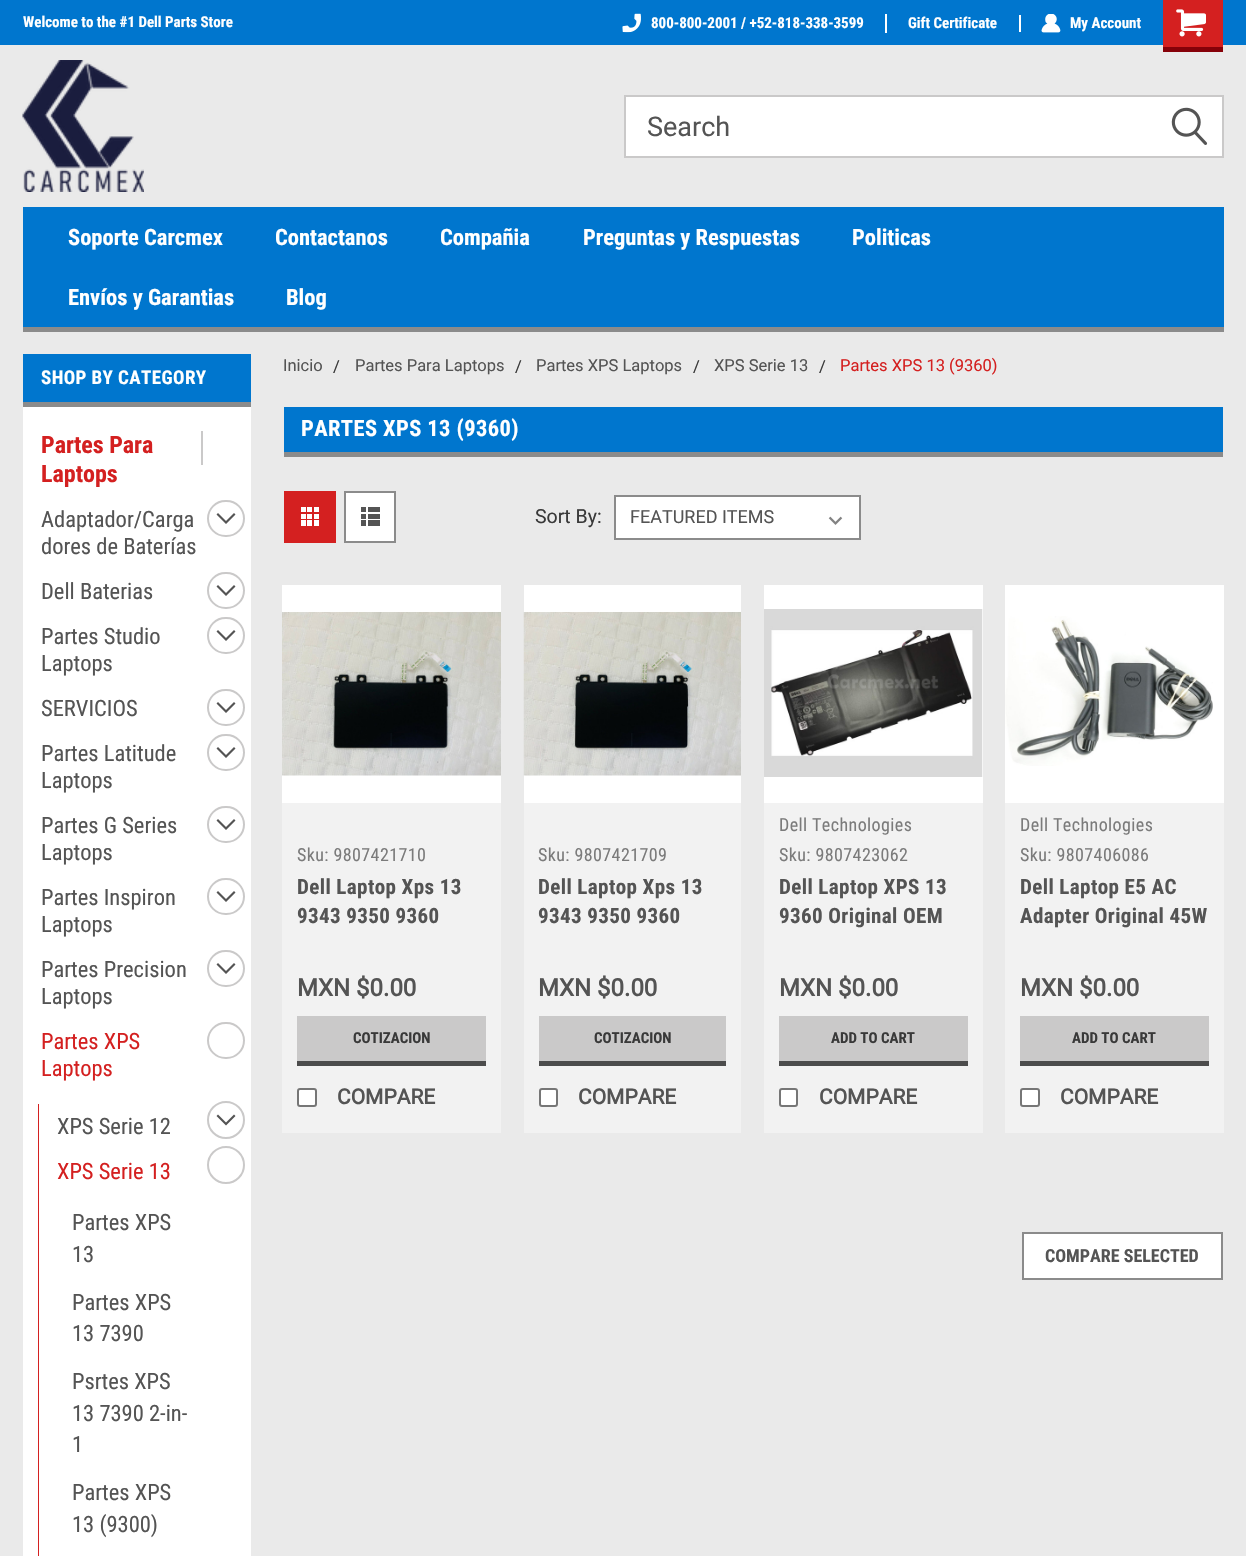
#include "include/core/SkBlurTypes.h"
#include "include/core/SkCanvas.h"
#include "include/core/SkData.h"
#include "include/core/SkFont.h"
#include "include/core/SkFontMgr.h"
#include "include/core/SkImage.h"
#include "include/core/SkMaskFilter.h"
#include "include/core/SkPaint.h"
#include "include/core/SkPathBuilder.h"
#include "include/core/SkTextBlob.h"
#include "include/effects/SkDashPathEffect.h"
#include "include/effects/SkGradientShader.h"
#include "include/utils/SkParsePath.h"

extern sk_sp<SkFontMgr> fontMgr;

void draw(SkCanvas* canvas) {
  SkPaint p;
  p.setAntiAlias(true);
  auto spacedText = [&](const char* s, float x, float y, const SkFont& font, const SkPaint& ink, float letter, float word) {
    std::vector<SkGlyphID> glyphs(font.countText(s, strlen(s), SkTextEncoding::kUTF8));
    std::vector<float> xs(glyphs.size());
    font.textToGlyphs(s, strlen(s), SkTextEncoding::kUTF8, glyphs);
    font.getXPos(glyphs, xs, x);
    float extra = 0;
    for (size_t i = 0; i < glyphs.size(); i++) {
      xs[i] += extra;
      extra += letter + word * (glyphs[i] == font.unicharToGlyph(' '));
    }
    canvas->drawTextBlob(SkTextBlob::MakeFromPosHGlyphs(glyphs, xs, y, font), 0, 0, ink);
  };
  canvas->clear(SkColorSetRGB(234, 234, 234));
  p.setColor(SkColorSetRGB(0, 118, 206));
  canvas->drawRect(SkRect::MakeLTRB(0, 0, 1246, 45), p);
  p.setColor(SK_ColorWHITE);
  canvas->drawRect(SkRect::MakeLTRB(885, 14, 887, 33), p);
  canvas->drawImageRect(SkImages::DeferredFromEncodedData(SkData::MakeFromFileName("images/1.png")), SkRect::MakeLTRB(622, 13, 641, 33), SkSamplingOptions());
  canvas->drawRect(SkRect::MakeLTRB(1019, 15, 1021, 32), p);
  canvas->drawImageRect(SkImages::DeferredFromEncodedData(SkData::MakeFromFileName("images/2.png")), SkRect::MakeLTRB(1041, 14, 1061, 33), SkSamplingOptions());
  p.setColor(SkColorSetRGB(212, 32, 32));
  canvas->drawRect(SkRect::MakeLTRB(1163, 0, 1223, 47), p);
  p.setColor(SkColorSetRGB(134, 1, 9));
  canvas->drawRect(SkRect::MakeLTRB(1163, 47, 1223, 52), p);
  canvas->drawImageRect(SkImages::DeferredFromEncodedData(SkData::MakeFromFileName("images/3.png")), SkRect::MakeLTRB(1176, 9, 1206, 37), SkSamplingOptions());
  canvas->drawImageRect(SkImages::DeferredFromEncodedData(SkData::MakeFromFileName("images/4.png")), SkRect::MakeLTRB(22, 60, 144, 192), SkSamplingOptions());
  p.setColor(SK_ColorWHITE);
  canvas->drawRect(SkRect::MakeLTRB(625, 96, 1223, 157), p);
  p.setStyle(SkPaint::kStroke_Style);
  p.setStrokeWidth(2);
  p.setColor(SkColorSetRGB(202, 201, 201));
  canvas->drawRect(SkRect::MakeLTRB(625, 96, 1223, 157), p);
  canvas->drawImageRect(SkImages::DeferredFromEncodedData(SkData::MakeFromFileName("images/5.png")), SkRect::MakeLTRB(1171, 107, 1208, 145), SkSamplingOptions());
  p.setStyle(SkPaint::kFill_Style);
  p.setColor(SkColorSetRGB(0, 118, 206));
  canvas->drawRect(SkRect::MakeLTRB(23, 207, 1224, 327), p);
  p.setColor(SkColorSetRGB(139, 139, 139));
  canvas->drawRect(SkRect::MakeLTRB(23, 327, 1224, 332), p);
  p.setColor(SkColorSetRGB(0, 118, 206));
  canvas->drawRect(SkRect::MakeLTRB(23, 354, 251, 402), p);
  p.setColor(SkColorSetRGB(139, 139, 139));
  canvas->drawRect(SkRect::MakeLTRB(23, 402, 257, 407), p);
  p.setColor(SK_ColorWHITE);
  canvas->drawRect(SkRect::MakeLTRB(23, 407, 251, 1556), p);
  p.setColor(SkColorSetRGB(202, 201, 201));
  canvas->drawRect(SkRect::MakeLTRB(201, 431, 203, 465), p);
  p.setStyle(SkPaint::kStroke_Style);
  canvas->drawRoundRect(SkRect::MakeLTRB(208, 501, 244, 536), 17.5f, 17.5f, p);
  p.setStyle(SkPaint::kFill_Style);
  p.setColor(SkColorSetRGB(84, 84, 84));
  canvas->drawPath(SkPathBuilder().moveTo(235.5f, 514.5f).lineTo(226, 524).lineTo(216.5f, 514.5f).lineTo(218, 513).lineTo(226, 521).lineTo(234, 513).close().detach(), p);
  p.setStyle(SkPaint::kStroke_Style);
  p.setColor(SkColorSetRGB(202, 201, 201));
  canvas->drawRoundRect(SkRect::MakeLTRB(208, 573, 244, 608), 17.5f, 17.5f, p);
  p.setStyle(SkPaint::kFill_Style);
  p.setColor(SkColorSetRGB(84, 84, 84));
  canvas->drawPath(SkPathBuilder().moveTo(235.5f, 586.5f).lineTo(226, 596).lineTo(216.5f, 586.5f).lineTo(218, 585).lineTo(226, 593).lineTo(234, 585).close().detach(), p);
  p.setStyle(SkPaint::kStroke_Style);
  p.setColor(SkColorSetRGB(202, 201, 201));
  canvas->drawRoundRect(SkRect::MakeLTRB(208, 618, 244, 653), 17.5f, 17.5f, p);
  p.setStyle(SkPaint::kFill_Style);
  p.setColor(SkColorSetRGB(84, 84, 84));
  canvas->drawPath(SkPathBuilder().moveTo(235.5f, 631.5f).lineTo(226, 641).lineTo(216.5f, 631.5f).lineTo(218, 630).lineTo(226, 638).lineTo(234, 630).close().detach(), p);
  p.setStyle(SkPaint::kStroke_Style);
  p.setColor(SkColorSetRGB(202, 201, 201));
  canvas->drawRoundRect(SkRect::MakeLTRB(208, 690, 244, 725), 17.5f, 17.5f, p);
  p.setStyle(SkPaint::kFill_Style);
  p.setColor(SkColorSetRGB(84, 84, 84));
  canvas->drawPath(SkPathBuilder().moveTo(235.5f, 703.5f).lineTo(226, 713).lineTo(216.5f, 703.5f).lineTo(218, 702).lineTo(226, 710).lineTo(234, 702).close().detach(), p);
  p.setStyle(SkPaint::kStroke_Style);
  p.setColor(SkColorSetRGB(202, 201, 201));
  canvas->drawRoundRect(SkRect::MakeLTRB(208, 735, 244, 770), 17.5f, 17.5f, p);
  p.setStyle(SkPaint::kFill_Style);
  p.setColor(SkColorSetRGB(84, 84, 84));
  canvas->drawPath(SkPathBuilder().moveTo(235.5f, 748.5f).lineTo(226, 758).lineTo(216.5f, 748.5f).lineTo(218, 747).lineTo(226, 755).lineTo(234, 747).close().detach(), p);
  p.setStyle(SkPaint::kStroke_Style);
  p.setColor(SkColorSetRGB(202, 201, 201));
  canvas->drawRoundRect(SkRect::MakeLTRB(208, 807, 244, 842), 17.5f, 17.5f, p);
  p.setStyle(SkPaint::kFill_Style);
  p.setColor(SkColorSetRGB(84, 84, 84));
  canvas->drawPath(SkPathBuilder().moveTo(235.5f, 820.5f).lineTo(226, 830).lineTo(216.5f, 820.5f).lineTo(218, 819).lineTo(226, 827).lineTo(234, 819).close().detach(), p);
  p.setStyle(SkPaint::kStroke_Style);
  p.setColor(SkColorSetRGB(202, 201, 201));
  canvas->drawRoundRect(SkRect::MakeLTRB(208, 879, 244, 914), 17.5f, 17.5f, p);
  p.setStyle(SkPaint::kFill_Style);
  p.setColor(SkColorSetRGB(84, 84, 84));
  canvas->drawPath(SkPathBuilder().moveTo(235.5f, 892.5f).lineTo(226, 902).lineTo(216.5f, 892.5f).lineTo(218, 891).lineTo(226, 899).lineTo(234, 891).close().detach(), p);
  p.setStyle(SkPaint::kStroke_Style);
  p.setColor(SkColorSetRGB(202, 201, 201));
  canvas->drawRoundRect(SkRect::MakeLTRB(208, 951, 244, 986), 17.5f, 17.5f, p);
  p.setStyle(SkPaint::kFill_Style);
  p.setColor(SkColorSetRGB(84, 84, 84));
  canvas->drawPath(SkPathBuilder().moveTo(235.5f, 964.5f).lineTo(226, 974).lineTo(216.5f, 964.5f).lineTo(218, 963).lineTo(226, 971).lineTo(234, 963).close().detach(), p);
  p.setStyle(SkPaint::kStroke_Style);
  p.setColor(SkColorSetRGB(202, 201, 201));
  canvas->drawRoundRect(SkRect::MakeLTRB(208, 1023, 244, 1058), 17.5f, 17.5f, p);
  p.setStyle(SkPaint::kFill_Style);
  p.setColor(SkColorSetRGB(212, 32, 32));
  canvas->drawRect(SkRect::MakeLTRB(38, 1104, 39, 1556), p);
  p.setStyle(SkPaint::kStroke_Style);
  p.setColor(SkColorSetRGB(202, 201, 201));
  canvas->drawCircle(226, 1120, 18, p);
  p.setStyle(SkPaint::kFill_Style);
  p.setColor(SkColorSetRGB(84, 84, 84));
  canvas->drawPath(SkPathBuilder().moveTo(235.5f, 1116).lineTo(226, 1125.5f).lineTo(216.5f, 1116).lineTo(218, 1114.5f).lineTo(226, 1122.5f).lineTo(234, 1114.5f).close().detach(), p);
  p.setStyle(SkPaint::kStroke_Style);
  p.setColor(SkColorSetRGB(202, 201, 201));
  canvas->drawCircle(226, 1165, 18, p);
  p.setStyle(SkPaint::kFill_Style);
  p.setColor(SkColorSetRGB(234, 234, 234));
  canvas->drawRect(SkRect::MakeLTRB(251, 402, 257, 407), p);
  p.setColor(SkColorSetRGB(0, 118, 206));
  canvas->drawRect(SkRect::MakeLTRB(284, 407, 1223, 452), p);
  p.setColor(SkColorSetRGB(139, 139, 139));
  canvas->drawRect(SkRect::MakeLTRB(284, 452, 1223, 457), p);
  p.setColor(SkColorSetRGB(212, 32, 32));
  canvas->drawRect(SkRect::MakeLTRB(284, 491, 336, 543), p);
  canvas->drawImageRect(SkImages::DeferredFromEncodedData(SkData::MakeFromFileName("images/6.png")), SkRect::MakeLTRB(301, 507, 319, 526), SkSamplingOptions());
  p.setColor(SK_ColorWHITE);
  canvas->drawRect(SkRect::MakeLTRB(345, 492, 395, 542), p);
  p.setStyle(SkPaint::kStroke_Style);
  p.setColor(SkColorSetRGB(139, 139, 139));
  canvas->drawRect(SkRect::MakeLTRB(345, 492, 395, 542), p);
  canvas->drawImageRect(SkImages::DeferredFromEncodedData(SkData::MakeFromFileName("images/7.png")), SkRect::MakeLTRB(361, 507, 380, 526), SkSamplingOptions());
  p.setStyle(SkPaint::kFill_Style);
  p.setColor(SK_ColorWHITE);
  canvas->drawRect(SkRect::MakeLTRB(616, 497, 859, 538), p);
  canvas->drawImageRect(SkImages::DeferredFromEncodedData(SkData::MakeFromFileName("images/8.png")), SkRect::MakeLTRB(828, 516, 843, 525), SkSamplingOptions());
  p.setStyle(SkPaint::kStroke_Style);
  p.setColor(SkColorSetRGB(139, 139, 139));
  canvas->drawRect(SkRect::MakeLTRB(615, 496, 860, 539), p);
  p.setStyle(SkPaint::kFill_Style);
  p.setColor(SkColorSetRGB(242, 242, 242));
  canvas->drawRect(SkRect::MakeLTRB(282, 803, 501, 1133), p);
  p.setColor(SK_ColorWHITE);
  canvas->drawRect(SkRect::MakeLTRB(282, 585, 501, 803), p);
  canvas->drawImageRect(SkImages::DeferredFromEncodedData(SkData::MakeFromFileName("images/9.png")), SkRect::MakeLTRB(282, 612, 501, 776), SkSamplingOptions());
  p.setColor(SkColorSetRGB(202, 201, 201));
  canvas->drawRect(SkRect::MakeLTRB(297, 1016, 486, 1061), p);
  p.setColor(SkColorSetRGB(76, 76, 76));
  canvas->drawRect(SkRect::MakeLTRB(297, 1061, 486, 1066), p);
  p.setColor(SK_ColorWHITE);
  canvas->drawRoundRect(SkRect::MakeLTRB(298, 1089, 316, 1106), 2, 2, p);
  p.setStyle(SkPaint::kStroke_Style);
  p.setColor(SkColorSetRGB(118, 118, 118));
  canvas->drawRoundRect(SkRect::MakeLTRB(298, 1089, 316, 1106), 2, 2, p);
  p.setStyle(SkPaint::kFill_Style);
  p.setColor(SkColorSetRGB(242, 242, 242));
  canvas->drawRect(SkRect::MakeLTRB(524, 803, 741, 1133), p);
  p.setColor(SK_ColorWHITE);
  canvas->drawRect(SkRect::MakeLTRB(524, 585, 741, 803), p);
  canvas->drawImageRect(SkImages::DeferredFromEncodedData(SkData::MakeFromFileName("images/10.png")), SkRect::MakeLTRB(523, 612, 741, 776), SkSamplingOptions());
  p.setColor(SkColorSetRGB(202, 201, 201));
  canvas->drawRect(SkRect::MakeLTRB(539, 1016, 726, 1061), p);
  p.setColor(SkColorSetRGB(76, 76, 76));
  canvas->drawRect(SkRect::MakeLTRB(539, 1061, 726, 1066), p);
  p.setColor(SK_ColorWHITE);
  canvas->drawRoundRect(SkRect::MakeLTRB(540, 1089, 557, 1106), 2, 2, p);
  p.setStyle(SkPaint::kStroke_Style);
  p.setColor(SkColorSetRGB(118, 118, 118));
  canvas->drawRoundRect(SkRect::MakeLTRB(540, 1089, 557, 1106), 2, 2, p);
  p.setStyle(SkPaint::kFill_Style);
  p.setColor(SkColorSetRGB(242, 242, 242));
  canvas->drawRect(SkRect::MakeLTRB(764, 803, 983, 1133), p);
  p.setColor(SK_ColorWHITE);
  canvas->drawRect(SkRect::MakeLTRB(764, 585, 983, 803), p);
  canvas->drawImageRect(SkImages::DeferredFromEncodedData(SkData::MakeFromFileName("images/11.png")), SkRect::MakeLTRB(764, 609, 983, 777), SkSamplingOptions());
  p.setColor(SkColorSetRGB(202, 201, 201));
  canvas->drawRect(SkRect::MakeLTRB(779, 1016, 968, 1061), p);
  p.setColor(SkColorSetRGB(76, 76, 76));
  canvas->drawRect(SkRect::MakeLTRB(779, 1061, 968, 1066), p);
  p.setColor(SK_ColorWHITE);
  canvas->drawRoundRect(SkRect::MakeLTRB(780, 1089, 797, 1106), 2, 2, p);
  p.setStyle(SkPaint::kStroke_Style);
  p.setColor(SkColorSetRGB(118, 118, 118));
  canvas->drawRoundRect(SkRect::MakeLTRB(780, 1089, 797, 1106), 2, 2, p);
  p.setStyle(SkPaint::kFill_Style);
  p.setColor(SkColorSetRGB(242, 242, 242));
  canvas->drawRect(SkRect::MakeLTRB(1005, 803, 1224, 1133), p);
  p.setColor(SK_ColorWHITE);
  canvas->drawRect(SkRect::MakeLTRB(1005, 585, 1224, 803), p);
  canvas->drawImageRect(SkImages::DeferredFromEncodedData(SkData::MakeFromFileName("images/12.png")), SkRect::MakeLTRB(1005, 616, 1213, 766), SkSamplingOptions());
  p.setColor(SkColorSetRGB(202, 201, 201));
  canvas->drawRect(SkRect::MakeLTRB(1020, 1016, 1209, 1061), p);
  p.setColor(SkColorSetRGB(76, 76, 76));
  canvas->drawRect(SkRect::MakeLTRB(1020, 1061, 1209, 1066), p);
  p.setColor(SK_ColorWHITE);
  canvas->drawRoundRect(SkRect::MakeLTRB(1021, 1089, 1039, 1106), 2, 2, p);
  p.setStyle(SkPaint::kStroke_Style);
  p.setColor(SkColorSetRGB(118, 118, 118));
  canvas->drawRoundRect(SkRect::MakeLTRB(1021, 1089, 1039, 1106), 2, 2, p);
  p.setStyle(SkPaint::kFill_Style);
  p.setColor(SK_ColorWHITE);
  canvas->drawRect(SkRect::MakeLTRB(1023, 1233, 1222, 1279), p);
  p.setStyle(SkPaint::kStroke_Style);
  p.setColor(SkColorSetRGB(139, 139, 139));
  canvas->drawRect(SkRect::MakeLTRB(1023, 1233, 1222, 1279), p);
  SkFont font1(fontMgr->matchFamilyStyle("Roboto Condensed", SkFontStyle::Bold()), 15);
  font1.setSubpixel(true);
  p.setStyle(SkPaint::kFill_Style);
  p.setColor(SK_ColorWHITE);
  canvas->drawString("Welcome to the #1 Dell Parts Store", 23, 27, font1, p);
  canvas->drawString("800-800-2001 / +52-818-338-3599", 651, 28, font1, p);
  canvas->drawString("Gift Certificate", 908, 28, font1, p);
  canvas->drawString("My Account", 1070, 28, font1, p);
  SkFont font2(fontMgr->matchFamilyStyle("Roboto", SkFontStyle::Normal()), 27);
  font2.setSubpixel(true);
  p.setColor(SkColorSetRGB(84, 84, 84));
  canvas->drawString("Search", 647, 136, font2, p);
  SkFont font3(fontMgr->matchFamilyStyle("Roboto Condensed", SkFontStyle::Bold()), 22.5f);
  font3.setSubpixel(true);
  p.setColor(SK_ColorWHITE);
  canvas->drawString("Soporte Carcmex", 68, 245, font3, p);
  canvas->drawString("Contactanos", 275, 245, font3, p);
  canvas->drawString("Compañia", 440, 245, font3, p);
  canvas->drawString("Preguntas y Respuestas", 583, 245, font3, p);
  canvas->drawString("Politicas", 852, 245, font3, p);
  canvas->drawString("Envíos y Garantias", 68, 305, font3, p);
  canvas->drawString("Blog", 286, 305, font3, p);
  SkFont font4(fontMgr->matchFamilyStyle("Roboto Condensed", SkFontStyle::Bold()), 19);
  font4.setSubpixel(true);
  spacedText("SHOP BY CATEGORY", 41, 384, font4, p, 0.4f, 0);
  SkFont font5(fontMgr->matchFamilyStyle("Roboto Condensed", SkFontStyle::Bold()), 24);
  font5.setSubpixel(true);
  p.setColor(SkColorSetRGB(212, 32, 32));
  canvas->drawString("Partes Para", 41, 453, font5, p);
  canvas->drawString("Laptops", 41, 482, font5, p);
  SkFont font6(fontMgr->matchFamilyStyle("Roboto Condensed", SkFontStyle::Normal()), 22.5f);
  font6.setSubpixel(true);
  p.setColor(SkColorSetRGB(84, 84, 84));
  canvas->drawString("Adaptador/Carga", 41, 527, font6, p);
  canvas->drawString("dores de Baterías", 41, 554, font6, p);
  canvas->drawString("Dell Baterias", 41, 599, font6, p);
  canvas->drawString("Partes Studio", 41, 644, font6, p);
  canvas->drawString("Laptops", 41, 671, font6, p);
  canvas->drawString("SERVICIOS", 41, 716, font6, p);
  canvas->drawString("Partes Latitude", 41, 761, font6, p);
  canvas->drawString("Laptops", 41, 788, font6, p);
  canvas->drawString("Partes G Series", 41, 833, font6, p);
  canvas->drawString("Laptops", 41, 860, font6, p);
  canvas->drawString("Partes Inspiron", 41, 905, font6, p);
  canvas->drawString("Laptops", 41, 932, font6, p);
  canvas->drawString("Partes Precision", 41, 977, font6, p);
  canvas->drawString("Laptops", 41, 1004, font6, p);
  p.setColor(SkColorSetRGB(212, 32, 32));
  canvas->drawString("Partes XPS", 41, 1049, font6, p);
  canvas->drawString("Laptops", 41, 1076, font6, p);
  p.setColor(SkColorSetRGB(84, 84, 84));
  canvas->drawString("XPS Serie 12", 57, 1134, font6, p);
  p.setColor(SkColorSetRGB(212, 32, 32));
  canvas->drawString("XPS Serie 13", 57, 1179, font6, p);
  p.setColor(SkColorSetRGB(84, 84, 84));
  canvas->drawString("Partes XPS", 72, 1230, font6, p);
  canvas->drawString("13", 72, 1262, font6, p);
  canvas->drawString("Partes XPS", 72, 1310, font6, p);
  canvas->drawString("13 7390", 72, 1341, font6, p);
  canvas->drawString("Psrtes XPS", 72, 1389, font6, p);
  canvas->drawString("13 7390 2-in-", 72, 1421, font6, p);
  canvas->drawString("1", 72, 1452, font6, p);
  canvas->drawString("Partes XPS", 72, 1500, font6, p);
  canvas->drawString("13 (9300)", 72, 1532, font6, p);
  SkFont font7(fontMgr->matchFamilyStyle("Roboto", SkFontStyle::Normal()), 16.5f);
  font7.setSubpixel(true);
  canvas->drawString("Inicio", 283, 371, font7, p);
  p.setColor(SkColorSetRGB(57, 57, 57));
  canvas->drawString("/", 333, 372, font7, p);
  p.setColor(SkColorSetRGB(84, 84, 84));
  canvas->drawString("Partes Para Laptops", 355, 371, font7, p);
  p.setColor(SkColorSetRGB(57, 57, 57));
  canvas->drawString("/", 515, 372, font7, p);
  p.setColor(SkColorSetRGB(84, 84, 84));
  canvas->drawString("Partes XPS Laptops", 536, 371, font7, p);
  p.setColor(SkColorSetRGB(57, 57, 57));
  canvas->drawString("/", 693, 372, font7, p);
  p.setColor(SkColorSetRGB(84, 84, 84));
  canvas->drawString("XPS Serie 13", 714, 371, font7, p);
  p.setColor(SkColorSetRGB(57, 57, 57));
  canvas->drawString("/", 819, 372, font7, p);
  p.setColor(SkColorSetRGB(212, 32, 32));
  canvas->drawString("Partes XPS 13 (9360)", 840, 371, font7, p);
  p.setColor(SK_ColorWHITE);
  spacedText("PARTES XPS 13 (9360)", 301, 436, font3, p, 0.4f, 0);
  SkFont font8(fontMgr->matchFamilyStyle("Roboto", SkFontStyle::Normal()), 19.5f);
  font8.setSubpixel(true);
  p.setColor(SkColorSetRGB(57, 57, 57));
  canvas->drawString("Sort By:", 535, 523, font8, p);
  SkFont font9(fontMgr->matchFamilyStyle("Roboto", SkFontStyle::Normal()), 18);
  font9.setSubpixel(true);
  p.setColor(SkColorSetRGB(84, 84, 84));
  canvas->drawString("FEATURED ITEMS", 630, 523, font9, p);
  SkFont font10(fontMgr->matchFamilyStyle("Roboto Condensed", SkFontStyle::Normal()), 18);
  font10.setSubpixel(true);
  p.setColor(SkColorSetRGB(123, 123, 123));
  spacedText("Sku: 9807421710", 297, 861, font10, p, 0.4f, 0);
  SkFont font11(fontMgr->matchFamilyStyle("Roboto Condensed", SkFontStyle::Bold()), 21);
  font11.setSubpixel(true);
  p.setColor(SkColorSetRGB(84, 84, 84));
  spacedText("Dell Laptop Xps 13", 297, 894, font11, p, 0.4f, 0);
  spacedText("9343 9350 9360", 297, 923, font11, p, 0.4f, 0);
  SkFont font12(fontMgr->matchFamilyStyle("Roboto", SkFontStyle::Bold()), 24);
  font12.setSubpixel(true);
  canvas->drawString("MXN $0.00", 297, 996, font12, p);
  p.setColor(SkColorSetRGB(57, 57, 57));
  canvas->drawString("COTIZACION", 353, 1043, font1, p);
  SkFont font13(fontMgr->matchFamilyStyle("Roboto", SkFontStyle::Bold()), 21);
  font13.setSubpixel(true);
  p.setColor(SkColorSetRGB(84, 84, 84));
  canvas->drawString("COMPARE", 337, 1104, font13, p);
  p.setColor(SkColorSetRGB(123, 123, 123));
  spacedText("Sku: 9807421709", 538, 861, font10, p, 0.4f, 0);
  p.setColor(SkColorSetRGB(84, 84, 84));
  spacedText("Dell Laptop Xps 13", 538, 894, font11, p, 0.4f, 0);
  spacedText("9343 9350 9360", 538, 923, font11, p, 0.4f, 0);
  canvas->drawString("MXN $0.00", 538, 996, font12, p);
  p.setColor(SkColorSetRGB(57, 57, 57));
  canvas->drawString("COTIZACION", 594, 1043, font1, p);
  p.setColor(SkColorSetRGB(84, 84, 84));
  canvas->drawString("COMPARE", 578, 1104, font13, p);
  p.setColor(SkColorSetRGB(123, 123, 123));
  spacedText("Dell Technologies", 779, 831, font10, p, 0.4f, 0);
  spacedText("Sku: 9807423062", 779, 861, font10, p, 0.4f, 0);
  p.setColor(SkColorSetRGB(84, 84, 84));
  spacedText("Dell Laptop XPS 13", 779, 894, font11, p, 0.4f, 0);
  spacedText("9360 Original OEM", 779, 923, font11, p, 0.4f, 0);
  canvas->drawString("MXN $0.00", 779, 996, font12, p);
  p.setColor(SkColorSetRGB(57, 57, 57));
  canvas->drawString("ADD TO CART", 831, 1043, font1, p);
  p.setColor(SkColorSetRGB(84, 84, 84));
  canvas->drawString("COMPARE", 819, 1104, font13, p);
  p.setColor(SkColorSetRGB(123, 123, 123));
  spacedText("Dell Technologies", 1020, 831, font10, p, 0.4f, 0);
  spacedText("Sku: 9807406086", 1020, 861, font10, p, 0.4f, 0);
  p.setColor(SkColorSetRGB(84, 84, 84));
  spacedText("Dell Laptop E5 AC", 1020, 894, font11, p, 0.4f, 0);
  spacedText("Adapter Original 45W", 1020, 923, font11, p, 0.4f, 0);
  canvas->drawString("MXN $0.00", 1020, 996, font12, p);
  p.setColor(SkColorSetRGB(57, 57, 57));
  canvas->drawString("ADD TO CART", 1072, 1043, font1, p);
  p.setColor(SkColorSetRGB(84, 84, 84));
  canvas->drawString("COMPARE", 1060, 1104, font13, p);
  SkFont font14(fontMgr->matchFamilyStyle("Roboto Condensed", SkFontStyle::Bold()), 18);
  font14.setSubpixel(true);
  canvas->drawString("COMPARE SELECTED", 1045, 1262, font14, p);
}
